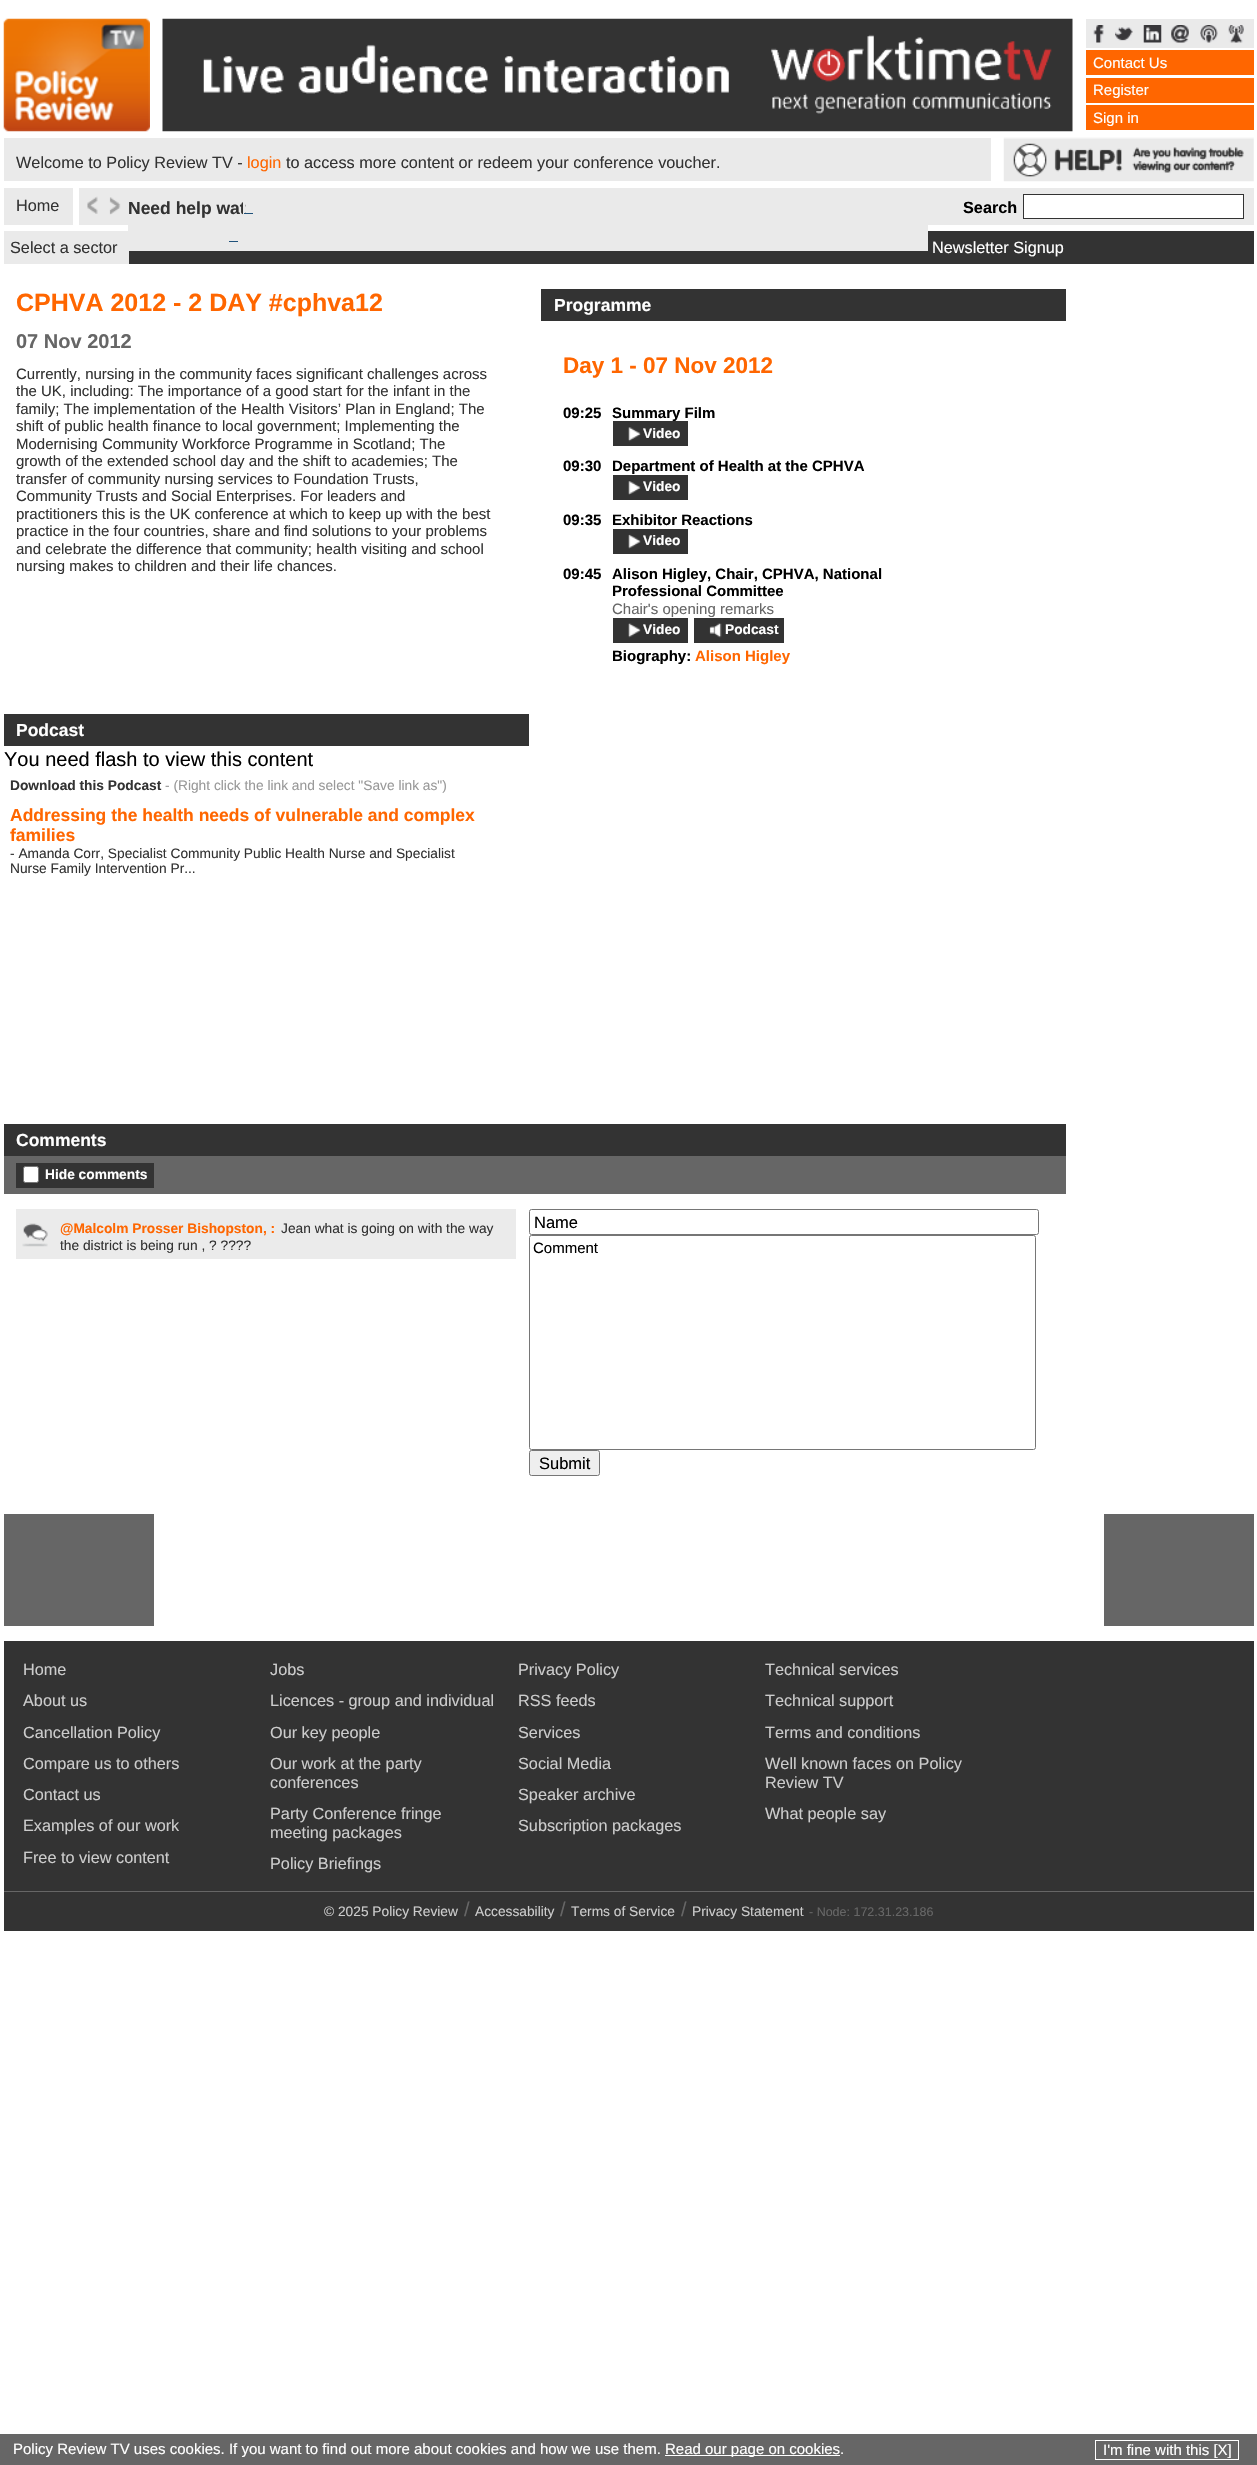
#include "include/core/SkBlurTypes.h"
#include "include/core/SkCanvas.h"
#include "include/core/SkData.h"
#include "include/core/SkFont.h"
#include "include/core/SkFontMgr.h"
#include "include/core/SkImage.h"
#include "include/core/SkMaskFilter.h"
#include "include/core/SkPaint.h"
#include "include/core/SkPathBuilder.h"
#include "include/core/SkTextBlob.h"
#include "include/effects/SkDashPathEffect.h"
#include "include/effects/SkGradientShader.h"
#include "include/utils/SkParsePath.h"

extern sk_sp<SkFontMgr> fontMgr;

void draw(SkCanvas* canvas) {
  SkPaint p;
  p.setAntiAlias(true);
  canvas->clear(SK_ColorWHITE);
  canvas->drawImageRect(SkImages::DeferredFromEncodedData(SkData::MakeFromFileName("images/1.png")), SkRect::MakeLTRB(3, 18, 150, 132), SkSamplingOptions());
  canvas->drawImageRect(SkImages::DeferredFromEncodedData(SkData::MakeFromFileName("images/2.png")), SkRect::MakeLTRB(162, 18, 1073, 132), SkSamplingOptions());
  p.setColor(SkColorSetRGB(234, 234, 234));
  canvas->drawRect(SkRect::MakeLTRB(1086, 19, 1254, 48), p);
  canvas->drawImageRect(SkImages::DeferredFromEncodedData(SkData::MakeFromFileName("images/3.png")), SkRect::MakeLTRB(1093, 25, 1104, 43), SkSamplingOptions());
  canvas->drawImageRect(SkImages::DeferredFromEncodedData(SkData::MakeFromFileName("images/4.png")), SkRect::MakeLTRB(1115, 27, 1133, 41), SkSamplingOptions());
  canvas->drawImageRect(SkImages::DeferredFromEncodedData(SkData::MakeFromFileName("images/5.png")), SkRect::MakeLTRB(1143, 25, 1162, 43), SkSamplingOptions());
  canvas->drawImageRect(SkImages::DeferredFromEncodedData(SkData::MakeFromFileName("images/6.png")), SkRect::MakeLTRB(1171, 25, 1189, 43), SkSamplingOptions());
  canvas->drawImageRect(SkImages::DeferredFromEncodedData(SkData::MakeFromFileName("images/7.png")), SkRect::MakeLTRB(1200, 25, 1218, 43), SkSamplingOptions());
  canvas->drawImageRect(SkImages::DeferredFromEncodedData(SkData::MakeFromFileName("images/8.png")), SkRect::MakeLTRB(1228, 25, 1244, 43), SkSamplingOptions());
  p.setColor(SkColorSetRGB(255, 102, 0));
  canvas->drawRect(SkRect::MakeLTRB(1086, 50, 1254, 75), p);
  canvas->drawRect(SkRect::MakeLTRB(1086, 78, 1254, 103), p);
  canvas->drawRect(SkRect::MakeLTRB(1086, 105, 1254, 130), p);
  p.setColor(SkColorSetRGB(234, 234, 234));
  canvas->drawRect(SkRect::MakeLTRB(4, 138, 991, 181), p);
  canvas->drawImageRect(SkImages::DeferredFromEncodedData(SkData::MakeFromFileName("images/9.png")), SkRect::MakeLTRB(1003, 137, 1254, 182), SkSamplingOptions());
  canvas->drawRect(SkRect::MakeLTRB(4, 188, 73, 225), p);
  canvas->drawRect(SkRect::MakeLTRB(79, 188, 1254, 225), p);
  canvas->drawImageRect(SkImages::DeferredFromEncodedData(SkData::MakeFromFileName("images/10.png")), SkRect::MakeLTRB(87, 196, 98, 214), SkSamplingOptions());
  canvas->drawImageRect(SkImages::DeferredFromEncodedData(SkData::MakeFromFileName("images/11.png")), SkRect::MakeLTRB(109, 197, 121, 215), SkSamplingOptions());
  p.setColor(SkColorSetRGB(51, 51, 51));
  canvas->drawRect(SkRect::MakeLTRB(129, 231, 1254, 264), p);
  p.setColor(SkColorSetRGB(234, 234, 234));
  canvas->drawRect(SkRect::MakeLTRB(128, 225, 928, 251), p);
  p.setColor(SkColorSetRGB(31, 82, 123));
  canvas->drawRect(SkRect::MakeLTRB(229, 241, 238, 242), p);
  p.setColor(SK_ColorWHITE);
  canvas->drawRect(SkRect::MakeLTRB(1023.5f, 194.5f, 1243.5f, 218.5f), p);
  p.setStyle(SkPaint::kStroke_Style);
  p.setStrokeWidth(1);
  p.setColor(SkColorSetRGB(51, 51, 51));
  canvas->drawRect(SkRect::MakeLTRB(1023.5f, 194.5f, 1243.5f, 218.5f), p);
  p.setStyle(SkPaint::kFill_Style);
  p.setColor(SkColorSetRGB(234, 234, 234));
  canvas->drawRect(SkRect::MakeLTRB(4, 231, 129, 264), p);
  p.setColor(SkColorSetRGB(51, 51, 51));
  canvas->drawRect(SkRect::MakeLTRB(541, 289, 1066, 321), p);
  canvas->drawRect(SkRect::MakeLTRB(613, 421, 688, 446), p);
  canvas->drawImageRect(SkImages::DeferredFromEncodedData(SkData::MakeFromFileName("images/12.png")), SkRect::MakeLTRB(628, 427, 641, 442), SkSamplingOptions());
  canvas->drawRect(SkRect::MakeLTRB(613, 475, 688, 500), p);
  canvas->drawImageRect(SkImages::DeferredFromEncodedData(SkData::MakeFromFileName("images/13.png")), SkRect::MakeLTRB(628, 481, 641, 495), SkSamplingOptions());
  canvas->drawRect(SkRect::MakeLTRB(613, 529, 688, 554), p);
  canvas->drawImageRect(SkImages::DeferredFromEncodedData(SkData::MakeFromFileName("images/14.png")), SkRect::MakeLTRB(628, 534, 641, 549), SkSamplingOptions());
  canvas->drawRect(SkRect::MakeLTRB(613, 618, 688, 643), p);
  canvas->drawImageRect(SkImages::DeferredFromEncodedData(SkData::MakeFromFileName("images/15.png")), SkRect::MakeLTRB(628, 623, 641, 638), SkSamplingOptions());
  canvas->drawRect(SkRect::MakeLTRB(694, 618, 784, 643), p);
  canvas->drawImageRect(SkImages::DeferredFromEncodedData(SkData::MakeFromFileName("images/16.png")), SkRect::MakeLTRB(709, 623, 722, 638), SkSamplingOptions());
  canvas->drawRect(SkRect::MakeLTRB(4, 714, 529, 746), p);
  canvas->drawRect(SkRect::MakeLTRB(4, 1124, 1066, 1156), p);
  p.setColor(SkColorSetRGB(102, 102, 102));
  canvas->drawRect(SkRect::MakeLTRB(4, 1156, 1066, 1194), p);
  p.setColor(SkColorSetRGB(51, 51, 51));
  canvas->drawRect(SkRect::MakeLTRB(16, 1163, 154, 1188), p);
  p.setColor(SK_ColorWHITE);
  canvas->drawRoundRect(SkRect::MakeLTRB(23.5f, 1166.5f, 38.5f, 1182.5f), 2, 2, p);
  p.setStyle(SkPaint::kStroke_Style);
  p.setColor(SkColorSetRGB(118, 118, 118));
  canvas->drawRoundRect(SkRect::MakeLTRB(23.5f, 1166.5f, 38.5f, 1182.5f), 2, 2, p);
  p.setStyle(SkPaint::kFill_Style);
  p.setColor(SkColorSetRGB(235, 235, 235));
  canvas->drawRect(SkRect::MakeLTRB(16, 1209, 516, 1259), p);
  canvas->drawImageRect(SkImages::DeferredFromEncodedData(SkData::MakeFromFileName("images/17.png")), SkRect::MakeLTRB(22, 1223, 48, 1247), SkSamplingOptions());
  p.setStyle(SkPaint::kStroke_Style);
  p.setColor(SkColorSetRGB(118, 118, 118));
  canvas->drawRoundRect(SkRect::MakeLTRB(529.5f, 1209.5f, 1038.5f, 1234.5f), 2, 2, p);
  canvas->drawRoundRect(SkRect::MakeLTRB(529.5f, 1235.5f, 1035.5f, 1449.5f), 2, 2, p);
  p.setStyle(SkPaint::kFill_Style);
  p.setColor(SkColorSetRGB(239, 239, 239));
  canvas->drawRoundRect(SkRect::MakeLTRB(529.5f, 1450.5f, 599.5f, 1475.5f), 2, 2, p);
  p.setStyle(SkPaint::kStroke_Style);
  p.setColor(SkColorSetRGB(118, 118, 118));
  canvas->drawRoundRect(SkRect::MakeLTRB(529.5f, 1450.5f, 599.5f, 1475.5f), 2, 2, p);
  p.setStyle(SkPaint::kFill_Style);
  p.setColor(SkColorSetRGB(102, 102, 102));
  canvas->drawRect(SkRect::MakeLTRB(4, 1514, 154, 1626), p);
  canvas->drawRect(SkRect::MakeLTRB(1104, 1514, 1254, 1626), p);
  p.setColor(SkColorSetRGB(51, 51, 51));
  canvas->drawRect(SkRect::MakeLTRB(4, 1641, 1254, 1891), p);
  canvas->drawRect(SkRect::MakeLTRB(4, 1892, 1254, 1931), p);
  p.setColor(SkColorSetRGB(102, 102, 102));
  canvas->drawRect(SkRect::MakeLTRB(4, 1891, 1254, 1892), p);
  canvas->drawRect(SkRect::MakeLTRB(0, 2434, 1257, 2465), p);
  p.setColor(SK_ColorWHITE);
  canvas->drawRect(SkRect::MakeLTRB(665, 2455, 840, 2456), p);
  p.setStyle(SkPaint::kStroke_Style);
  canvas->drawRect(SkRect::MakeLTRB(1095.5f, 2440.5f, 1238.5f, 2459.5f), p);
  SkFont font1(fontMgr->matchFamilyStyle("Liberation Sans", SkFontStyle::Normal()), 15);
  font1.setSubpixel(true);
  p.setStyle(SkPaint::kFill_Style);
  canvas->drawString("Contact Us", 1093, 68, font1, p);
  canvas->drawString("Register", 1093, 95, font1, p);
  canvas->drawString("Sign in", 1093, 123, font1, p);
  SkFont font2(fontMgr->matchFamilyStyle("Liberation Sans", SkFontStyle::Normal()), 16.25f);
  font2.setSubpixel(true);
  p.setColor(SkColorSetRGB(51, 51, 51));
  canvas->drawString("Welcome to Policy Review TV -", 16, 168, font2, p);
  p.setColor(SkColorSetRGB(255, 102, 0));
  canvas->drawString("login", 247, 168, font2, p);
  p.setColor(SkColorSetRGB(51, 51, 51));
  canvas->drawString("to access more content or redeem your conference voucher.", 286, 168, font2, p);
  canvas->drawString("Home", 16, 211, font2, p);
  SkFont font3(fontMgr->matchFamilyStyle("Liberation Sans", SkFontStyle::Bold()), 17.5f);
  font3.setSubpixel(true);
  canvas->drawString("Need help wat", 128, 214, font3, p);
  p.setColor(SkColorSetRGB(234, 234, 234));
  canvas->drawRect(SkRect::MakeLTRB(243, 202, 245, 215), p);
  p.setColor(SkColorSetRGB(31, 82, 123));
  canvas->drawRect(SkRect::MakeLTRB(244, 213, 253, 214), p);
  SkFont font4(fontMgr->matchFamilyStyle("Liberation Sans", SkFontStyle::Bold()), 16.25f);
  font4.setSubpixel(true);
  p.setColor(SK_ColorBLACK);
  canvas->drawString("Search", 963, 213, font4, p);
  p.setColor(SkColorSetRGB(51, 51, 51));
  canvas->drawString("Select a sector", 10, 253, font2, p);
  p.setColor(SK_ColorWHITE);
  canvas->drawString("Newsletter Signup", 932, 253, font2, p);
  SkFont font5(fontMgr->matchFamilyStyle("Liberation Sans", SkFontStyle::Bold()), 25);
  font5.setSubpixel(true);
  p.setColor(SkColorSetRGB(255, 102, 0));
  canvas->drawString("CPHVA 2012 - 2 DAY #cphva12", 16, 311, font5, p);
  SkFont font6(fontMgr->matchFamilyStyle("Liberation Sans", SkFontStyle::Bold()), 20);
  font6.setSubpixel(true);
  p.setColor(SkColorSetRGB(102, 102, 102));
  canvas->drawString("07 Nov 2012", 16, 348, font6, p);
  p.setColor(SkColorSetRGB(51, 51, 51));
  canvas->drawString("Currently, nursing in the community faces significant challenges across", 16, 379, font1, p);
  canvas->drawString("the UK, including: The importance of a good start for the infant in the", 16, 396, font1, p);
  canvas->drawString("family; The implementation of the Health Visitors’ Plan in England; The", 16, 414, font1, p);
  canvas->drawString("shift of public health finance to local government; Implementing the", 16, 431, font1, p);
  canvas->drawString("Modernising Community Workforce Programme in Scotland; The", 16, 449, font1, p);
  canvas->drawString("growth of the extended school day and the shift to academies; The", 16, 466, font1, p);
  canvas->drawString("transfer of community nursing services to Foundation Trusts,", 16, 484, font1, p);
  canvas->drawString("Community Trusts and Social Enterprises. For leaders and", 16, 501, font1, p);
  canvas->drawString("practitioners this is the UK conference at which to keep up with the best", 16, 519, font1, p);
  canvas->drawString("practice in the four countries, share and find solutions to your problems", 16, 536, font1, p);
  canvas->drawString("and celebrate the difference that community; health visiting and school", 16, 554, font1, p);
  canvas->drawString("nursing makes to children and their life chances.", 16, 571, font1, p);
  p.setColor(SK_ColorWHITE);
  canvas->drawString("Programme", 554, 311, font3, p);
  SkFont font7(fontMgr->matchFamilyStyle("Liberation Sans", SkFontStyle::Bold()), 22.5f);
  font7.setSubpixel(true);
  p.setColor(SkColorSetRGB(255, 102, 0));
  canvas->drawString("Day 1 - 07 Nov 2012", 563, 373, font7, p);
  SkFont font8(fontMgr->matchFamilyStyle("Liberation Sans", SkFontStyle::Bold()), 15);
  font8.setSubpixel(true);
  p.setColor(SK_ColorBLACK);
  canvas->drawString("09:25", 563, 418, font8, p);
  canvas->drawString("Summary Film", 612, 418, font8, p);
  SkFont font9(fontMgr->matchFamilyStyle("Liberation Sans", SkFontStyle::Bold()), 13.75f);
  font9.setSubpixel(true);
  p.setColor(SK_ColorWHITE);
  canvas->drawString("Video", 643, 438, font9, p);
  p.setColor(SK_ColorBLACK);
  canvas->drawString("09:30", 563, 471, font8, p);
  canvas->drawString("Department of Health at the CPHVA", 612, 471, font8, p);
  p.setColor(SK_ColorWHITE);
  canvas->drawString("Video", 643, 491, font9, p);
  p.setColor(SK_ColorBLACK);
  canvas->drawString("09:35", 563, 525, font8, p);
  canvas->drawString("Exhibitor Reactions", 612, 525, font8, p);
  p.setColor(SK_ColorWHITE);
  canvas->drawString("Video", 643, 545, font9, p);
  p.setColor(SK_ColorBLACK);
  canvas->drawString("09:45", 563, 579, font8, p);
  canvas->drawString("Alison Higley, Chair, CPHVA, National", 612, 579, font8, p);
  canvas->drawString("Professional Committee", 612, 596, font8, p);
  p.setColor(SkColorSetRGB(102, 102, 102));
  canvas->drawString("Chair's opening remarks", 612, 614, font1, p);
  p.setColor(SK_ColorWHITE);
  canvas->drawString("Video", 643, 634, font9, p);
  canvas->drawString("Podcast", 725, 634, font9, p);
  p.setColor(SK_ColorBLACK);
  canvas->drawString("Biography:", 612, 661, font8, p);
  p.setColor(SkColorSetRGB(255, 102, 0));
  canvas->drawString("Alison Higley", 695, 661, font8, p);
  p.setColor(SK_ColorWHITE);
  canvas->drawString("Podcast", 16, 736, font3, p);
  SkFont font10(fontMgr->matchFamilyStyle("Liberation Sans", SkFontStyle::Normal()), 20);
  font10.setSubpixel(true);
  p.setColor(SK_ColorBLACK);
  canvas->drawString("You need flash to view this content", 4, 766, font10, p);
  p.setColor(SkColorSetRGB(51, 51, 51));
  canvas->drawString("Download this Podcast", 10, 790, font9, p);
  SkFont font11(fontMgr->matchFamilyStyle("Liberation Sans", SkFontStyle::Normal()), 13.75f);
  font11.setSubpixel(true);
  p.setColor(SkColorSetRGB(153, 153, 153));
  canvas->drawString("- (Right click the link and select \"Save link as\")", 165, 790, font11, p);
  p.setColor(SkColorSetRGB(255, 102, 0));
  canvas->drawString("Addressing the health needs of vulnerable and complex", 10, 821, font3, p);
  canvas->drawString("families", 10, 841, font3, p);
  p.setColor(SkColorSetRGB(51, 51, 51));
  canvas->drawString("- Amanda Corr, Specialist Community Public Health Nurse and Specialist", 10, 858, font11, p);
  canvas->drawString("Nurse Family Intervention Pr...", 10, 873, font11, p);
  p.setColor(SK_ColorWHITE);
  canvas->drawString("Comments", 16, 1146, font3, p);
  canvas->drawString("Hide comments", 45, 1179, font9, p);
  p.setColor(SkColorSetRGB(255, 102, 0));
  canvas->drawString("@Malcolm Prosser Bishopston, :", 60, 1233, font9, p);
  p.setColor(SkColorSetRGB(51, 51, 51));
  canvas->drawString("Jean what is going on with the way", 281, 1233, font11, p);
  canvas->drawString("the district is being run , ? ?\077?\077", 60, 1250, font11, p);
  SkFont font12(fontMgr->matchFamilyStyle("Liberation Sans", SkFontStyle::Normal()), 16.5f);
  font12.setSubpixel(true);
  p.setColor(SK_ColorBLACK);
  canvas->drawString("Name", 534, 1228, font12, p);
  canvas->drawString("Comment", 533, 1253, font1, p);
  canvas->drawString("Submit", 539, 1469, font12, p);
  p.setColor(SkColorSetRGB(204, 204, 204));
  canvas->drawString("Home", 23, 1675, font2, p);
  canvas->drawString("About us", 23, 1706, font2, p);
  canvas->drawString("Cancellation Policy", 23, 1738, font2, p);
  canvas->drawString("Compare us to others", 23, 1769, font2, p);
  canvas->drawString("Contact us", 23, 1800, font2, p);
  canvas->drawString("Examples of our work", 23, 1831, font2, p);
  canvas->drawString("Free to view content", 23, 1863, font2, p);
  canvas->drawString("Jobs", 270, 1675, font2, p);
  canvas->drawString("Licences - group and individual", 270, 1706, font2, p);
  canvas->drawString("Our key people", 270, 1738, font2, p);
  canvas->drawString("Our work at the party", 270, 1769, font2, p);
  canvas->drawString("conferences", 270, 1788, font2, p);
  canvas->drawString("Party Conference fringe", 270, 1819, font2, p);
  canvas->drawString("meeting packages", 270, 1838, font2, p);
  canvas->drawString("Policy Briefings", 270, 1869, font2, p);
  canvas->drawString("Privacy Policy", 518, 1675, font2, p);
  canvas->drawString("RSS feeds", 518, 1706, font2, p);
  canvas->drawString("Services", 518, 1738, font2, p);
  canvas->drawString("Social Media", 518, 1769, font2, p);
  canvas->drawString("Speaker archive", 518, 1800, font2, p);
  canvas->drawString("Subscription packages", 518, 1831, font2, p);
  canvas->drawString("Technical services", 765, 1675, font2, p);
  canvas->drawString("Technical support", 765, 1706, font2, p);
  canvas->drawString("Terms and conditions", 765, 1738, font2, p);
  canvas->drawString("Well known faces on Policy", 765, 1769, font2, p);
  canvas->drawString("Review TV", 765, 1788, font2, p);
  canvas->drawString("What people say", 765, 1819, font2, p);
  canvas->drawString("© 2025 Policy Review", 324, 1916, font11, p);
  p.setColor(SkColorSetRGB(102, 102, 102));
  canvas->drawString("/", 464, 1916, font10, p);
  p.setColor(SkColorSetRGB(204, 204, 204));
  canvas->drawString("Accessability", 475, 1916, font11, p);
  p.setColor(SkColorSetRGB(102, 102, 102));
  canvas->drawString("/", 560, 1916, font10, p);
  p.setColor(SkColorSetRGB(204, 204, 204));
  canvas->drawString("Terms of Service", 571, 1916, font11, p);
  p.setColor(SkColorSetRGB(102, 102, 102));
  canvas->drawString("/", 681, 1916, font10, p);
  p.setColor(SkColorSetRGB(204, 204, 204));
  canvas->drawString("Privacy Statement", 692, 1916, font11, p);
  SkFont font13(fontMgr->matchFamilyStyle("Liberation Sans", SkFontStyle::Normal()), 12.5f);
  font13.setSubpixel(true);
  p.setColor(SkColorSetRGB(102, 102, 102));
  canvas->drawString("- Node: 172.31.23.186", 809, 1916, font13, p);
  p.setColor(SK_ColorWHITE);
  canvas->drawString("Policy Review TV uses cookies. If you want to find out more about cookies and how we use them.", 13, 2454, font1, p);
  canvas->drawString("Read our page on cookies.", 665, 2454, font1, p);
  canvas->drawString("I'm fine with this [X]", 1103, 2455, font1, p);
}
